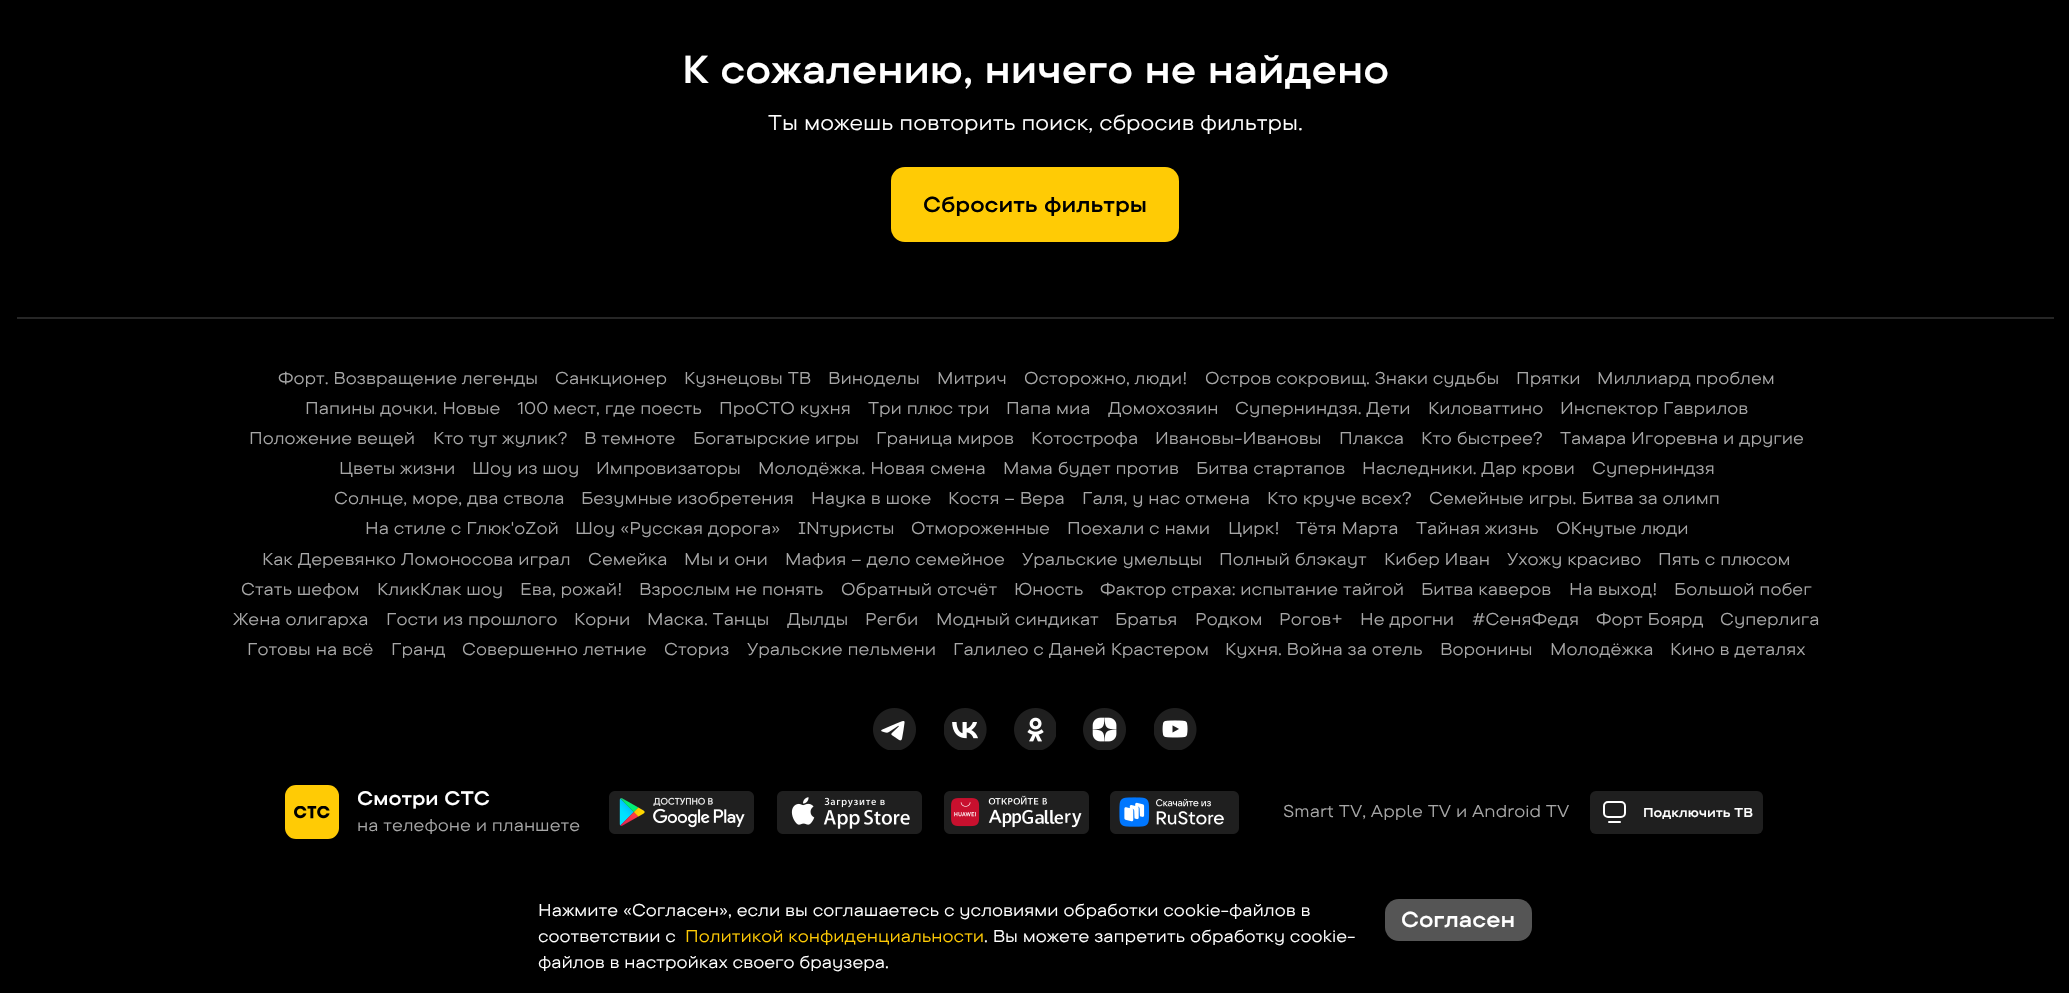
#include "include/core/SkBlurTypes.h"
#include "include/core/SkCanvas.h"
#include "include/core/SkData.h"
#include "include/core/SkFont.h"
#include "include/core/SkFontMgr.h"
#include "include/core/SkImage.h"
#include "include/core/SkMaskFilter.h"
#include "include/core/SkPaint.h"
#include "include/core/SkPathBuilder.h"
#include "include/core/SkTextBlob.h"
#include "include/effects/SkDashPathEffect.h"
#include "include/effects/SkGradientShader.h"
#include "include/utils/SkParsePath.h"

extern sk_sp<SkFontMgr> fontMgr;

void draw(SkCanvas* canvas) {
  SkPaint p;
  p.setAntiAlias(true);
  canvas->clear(SK_ColorBLACK);
  p.setColor(SkColorSetRGB(255, 203, 5));
  canvas->drawRoundRect(SkRect::MakeLTRB(891, 167, 1179, 242), 14, 14, p);
  p.setColor(SkColorSetRGB(38, 38, 38));
  canvas->drawRect(SkRect::MakeLTRB(17, 317, 2054, 319), p);
  canvas->drawImageRect(SkImages::DeferredFromEncodedData(SkData::MakeFromFileName("images/1.png")), SkRect::MakeLTRB(873, 708, 916, 750), SkSamplingOptions());
  canvas->drawImageRect(SkImages::DeferredFromEncodedData(SkData::MakeFromFileName("images/2.png")), SkRect::MakeLTRB(944, 708, 987, 750), SkSamplingOptions());
  canvas->drawImageRect(SkImages::DeferredFromEncodedData(SkData::MakeFromFileName("images/3.png")), SkRect::MakeLTRB(1014, 708, 1056, 750), SkSamplingOptions());
  canvas->drawImageRect(SkImages::DeferredFromEncodedData(SkData::MakeFromFileName("images/4.png")), SkRect::MakeLTRB(1083, 708, 1126, 750), SkSamplingOptions());
  canvas->drawImageRect(SkImages::DeferredFromEncodedData(SkData::MakeFromFileName("images/5.png")), SkRect::MakeLTRB(1154, 708, 1197, 750), SkSamplingOptions());
  p.setColor(SkColorSetRGB(255, 203, 5));
  canvas->drawRoundRect(SkRect::MakeLTRB(285, 785, 339, 839), 11, 11, p);
  canvas->drawImageRect(SkImages::DeferredFromEncodedData(SkData::MakeFromFileName("images/6.png")), SkRect::MakeLTRB(294, 806, 330, 819), SkSamplingOptions());
  canvas->drawImageRect(SkImages::DeferredFromEncodedData(SkData::MakeFromFileName("images/7.png")), SkRect::MakeLTRB(609, 791, 754, 834), SkSamplingOptions());
  canvas->drawImageRect(SkImages::DeferredFromEncodedData(SkData::MakeFromFileName("images/8.png")), SkRect::MakeLTRB(777, 791, 922, 834), SkSamplingOptions());
  canvas->drawImageRect(SkImages::DeferredFromEncodedData(SkData::MakeFromFileName("images/9.png")), SkRect::MakeLTRB(944, 791, 1089, 834), SkSamplingOptions());
  canvas->drawImageRect(SkImages::DeferredFromEncodedData(SkData::MakeFromFileName("images/10.png")), SkRect::MakeLTRB(1110, 791, 1239, 834), SkSamplingOptions());
  p.setColor(SkColorSetRGB(31, 31, 31));
  canvas->drawRoundRect(SkRect::MakeLTRB(1590, 791, 1763, 834), 6, 6, p);
  p.setStyle(SkPaint::kStroke_Style);
  p.setStrokeWidth(2);
  p.setColor(SK_ColorWHITE);
  canvas->drawRoundRect(SkRect::MakeLTRB(1604, 802, 1625, 817), 4, 4, p);
  p.setStyle(SkPaint::kFill_Style);
  canvas->drawRoundRect(SkRect::MakeLTRB(1608, 821, 1621, 823), 1, 1, p);
  p.setColor(SkColorSetRGB(85, 85, 85));
  canvas->drawRoundRect(SkRect::MakeLTRB(1385, 899, 1532, 941), 14, 14, p);
  SkFont font1(fontMgr->matchFamilyStyle("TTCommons", SkFontStyle(600, SkFontStyle::kNormal_Width, SkFontStyle::kUpright_Slant)), 38.8f);
  font1.setSubpixel(true);
  p.setColor(SK_ColorWHITE);
  canvas->drawString("К сожалению, ничего не найдено", 682, 83, font1, p);
  SkFont font2(fontMgr->matchFamilyStyle("TTCommons", SkFontStyle::Normal()), 21.6f);
  font2.setSubpixel(true);
  canvas->drawString("Ты можешь повторить поиск, сбросив фильтры.", 768, 130, font2, p);
  SkFont font3(fontMgr->matchFamilyStyle("TTCommons", SkFontStyle(600, SkFontStyle::kNormal_Width, SkFontStyle::kUpright_Slant)), 21.6f);
  font3.setSubpixel(true);
  p.setColor(SK_ColorBLACK);
  canvas->drawString("Сбросить фильтры", 923, 212, font3, p);
  SkFont font4(fontMgr->matchFamilyStyle("TTCommons", SkFontStyle::Normal()), 17.25f);
  font4.setSubpixel(true);
  p.setColor(SkColorSetRGB(167, 167, 167));
  canvas->drawString("Форт. Возвращение легенды", 278, 384, font4, p);
  canvas->drawString("Санкционер", 555, 384, font4, p);
  canvas->drawString("Кузнецовы ТВ", 684, 384, font4, p);
  canvas->drawString("Виноделы", 828, 384, font4, p);
  canvas->drawString("Митрич", 937, 384, font4, p);
  canvas->drawString("Осторожно, люди!", 1024, 384, font4, p);
  canvas->drawString("Остров сокровищ. Знаки судьбы", 1205, 384, font4, p);
  canvas->drawString("Прятки", 1516, 384, font4, p);
  canvas->drawString("Миллиард проблем", 1597, 384, font4, p);
  canvas->drawString("Папины дочки. Новые", 305, 414, font4, p);
  canvas->drawString("100 мест, где поесть", 517, 414, font4, p);
  canvas->drawString("ПроСТО кухня", 719, 414, font4, p);
  canvas->drawString("Три плюс три", 868, 414, font4, p);
  canvas->drawString("Папа миа", 1006, 414, font4, p);
  canvas->drawString("Домохозяин", 1108, 414, font4, p);
  canvas->drawString("Суперниндзя. Дети", 1235, 414, font4, p);
  canvas->drawString("Киловаттино", 1428, 414, font4, p);
  canvas->drawString("Инспектор Гаврилов", 1560, 414, font4, p);
  canvas->drawString("Положение вещей", 249, 444, font4, p);
  canvas->drawString("Кто тут жулик?", 433, 444, font4, p);
  canvas->drawString("В темноте", 584, 444, font4, p);
  canvas->drawString("Богатырские игры", 693, 444, font4, p);
  canvas->drawString("Граница миров", 876, 444, font4, p);
  canvas->drawString("Котострофа", 1031, 444, font4, p);
  canvas->drawString("Ивановы-Ивановы", 1155, 444, font4, p);
  canvas->drawString("Плакса", 1339, 444, font4, p);
  canvas->drawString("Кто быстрее?", 1421, 444, font4, p);
  canvas->drawString("Тамара Игоревна и другие", 1560, 444, font4, p);
  canvas->drawString("Цветы жизни", 339, 474, font4, p);
  canvas->drawString("Шоу из шоу", 472, 474, font4, p);
  canvas->drawString("Импровизаторы", 596, 474, font4, p);
  canvas->drawString("Молодёжка. Новая смена", 758, 474, font4, p);
  canvas->drawString("Мама будет против", 1003, 474, font4, p);
  canvas->drawString("Битва стартапов", 1196, 474, font4, p);
  canvas->drawString("Наследники. Дар крови", 1362, 474, font4, p);
  canvas->drawString("Суперниндзя", 1592, 474, font4, p);
  canvas->drawString("Солнце, море, два ствола", 334, 504, font4, p);
  canvas->drawString("Безумные изобретения", 581, 504, font4, p);
  canvas->drawString("Наука в шоке", 811, 504, font4, p);
  canvas->drawString("Костя – Вера", 948, 504, font4, p);
  canvas->drawString("Галя, у нас отмена", 1082, 504, font4, p);
  canvas->drawString("Кто круче всех?", 1267, 504, font4, p);
  canvas->drawString("Семейные игры. Битва за олимп", 1429, 504, font4, p);
  canvas->drawString("На стиле с Глюк'oZой", 365, 534, font4, p);
  canvas->drawString("Шоу «Русская дорога»", 575, 534, font4, p);
  canvas->drawString("INтуристы", 798, 534, font4, p);
  canvas->drawString("Отмороженные", 911, 534, font4, p);
  canvas->drawString("Поехали с нами", 1067, 534, font4, p);
  canvas->drawString("Цирк!", 1228, 534, font4, p);
  canvas->drawString("Тётя Марта", 1296, 534, font4, p);
  canvas->drawString("Тайная жизнь", 1416, 534, font4, p);
  canvas->drawString("ОКнутые люди", 1556, 534, font4, p);
  canvas->drawString("Как Деревянко Ломоносова играл", 262, 565, font4, p);
  canvas->drawString("Семейка", 588, 565, font4, p);
  canvas->drawString("Мы и они", 684, 565, font4, p);
  canvas->drawString("Мафия – дело семейное", 785, 565, font4, p);
  canvas->drawString("Уральские умельцы", 1022, 565, font4, p);
  canvas->drawString("Полный блэкаут", 1219, 565, font4, p);
  canvas->drawString("Кибер Иван", 1384, 565, font4, p);
  canvas->drawString("Ухожу красиво", 1507, 565, font4, p);
  canvas->drawString("Пять с плюсом", 1658, 565, font4, p);
  canvas->drawString("Стать шефом", 241, 595, font4, p);
  canvas->drawString("КликКлак шоу", 377, 595, font4, p);
  canvas->drawString("Ева, рожай!", 520, 595, font4, p);
  canvas->drawString("Взрослым не понять", 639, 595, font4, p);
  canvas->drawString("Обратный отсчёт", 841, 595, font4, p);
  canvas->drawString("Юность", 1014, 595, font4, p);
  canvas->drawString("Фактор страха: испытание тайгой", 1100, 595, font4, p);
  canvas->drawString("Битва каверов", 1421, 595, font4, p);
  canvas->drawString("На выход!", 1569, 595, font4, p);
  canvas->drawString("Большой побег", 1674, 595, font4, p);
  canvas->drawString("Жена олигарха", 233, 625, font4, p);
  canvas->drawString("Гости из прошлого", 386, 625, font4, p);
  canvas->drawString("Корни", 574, 625, font4, p);
  canvas->drawString("Маска. Танцы", 647, 625, font4, p);
  canvas->drawString("Дылды", 787, 625, font4, p);
  canvas->drawString("Регби", 865, 625, font4, p);
  canvas->drawString("Модный синдикат", 936, 625, font4, p);
  canvas->drawString("Братья", 1115, 625, font4, p);
  canvas->drawString("Родком", 1195, 625, font4, p);
  canvas->drawString("Рогов+", 1279, 625, font4, p);
  canvas->drawString("Не дрогни", 1360, 625, font4, p);
  canvas->drawString("#СеняФедя", 1472, 625, font4, p);
  canvas->drawString("Форт Боярд", 1596, 625, font4, p);
  canvas->drawString("Суперлига", 1720, 625, font4, p);
  canvas->drawString("Готовы на всё", 247, 655, font4, p);
  canvas->drawString("Гранд", 391, 655, font4, p);
  canvas->drawString("Совершенно летние", 462, 655, font4, p);
  canvas->drawString("Сториз", 664, 655, font4, p);
  canvas->drawString("Уральские пельмени", 747, 655, font4, p);
  canvas->drawString("Галилео с Даней Крастером", 953, 655, font4, p);
  canvas->drawString("Кухня. Война за отель", 1225, 655, font4, p);
  canvas->drawString("Воронины", 1440, 655, font4, p);
  canvas->drawString("Молодёжка", 1550, 655, font4, p);
  canvas->drawString("Кино в деталях", 1670, 655, font4, p);
  SkFont font5(fontMgr->matchFamilyStyle("TTCommons", SkFontStyle(600, SkFontStyle::kNormal_Width, SkFontStyle::kUpright_Slant)), 19.5f);
  font5.setSubpixel(true);
  p.setColor(SK_ColorWHITE);
  canvas->drawString("Смотри СТС", 357, 805, font5, p);
  p.setColor(SkColorSetRGB(167, 167, 167));
  canvas->drawString("на телефоне и планшете", 357, 831, font4, p);
  canvas->drawString("Smart TV, Apple TV и Android TV", 1283, 817, font4, p);
  SkFont font6(fontMgr->matchFamilyStyle("TTCommons", SkFontStyle(600, SkFontStyle::kNormal_Width, SkFontStyle::kUpright_Slant)), 13);
  font6.setSubpixel(true);
  p.setColor(SK_ColorWHITE);
  canvas->drawString("Подключить ТВ", 1643, 817, font6, p);
  canvas->drawString("Нажмите «Согласен», если вы соглашаетесь с условиями обработки cookie-файлов в", 538, 916, font4, p);
  canvas->drawString("соответствии с", 538, 942, font4, p);
  p.setColor(SkColorSetRGB(255, 203, 5));
  canvas->drawString("Политикой конфиденциальности", 685, 942, font4, p);
  p.setColor(SK_ColorWHITE);
  canvas->drawString(". Вы можете запретить обработку cookie-", 984, 942, font4, p);
  canvas->drawString("файлов в настройках своего браузера.", 538, 968, font4, p);
  canvas->drawString("Согласен", 1401, 927, font3, p);
}
